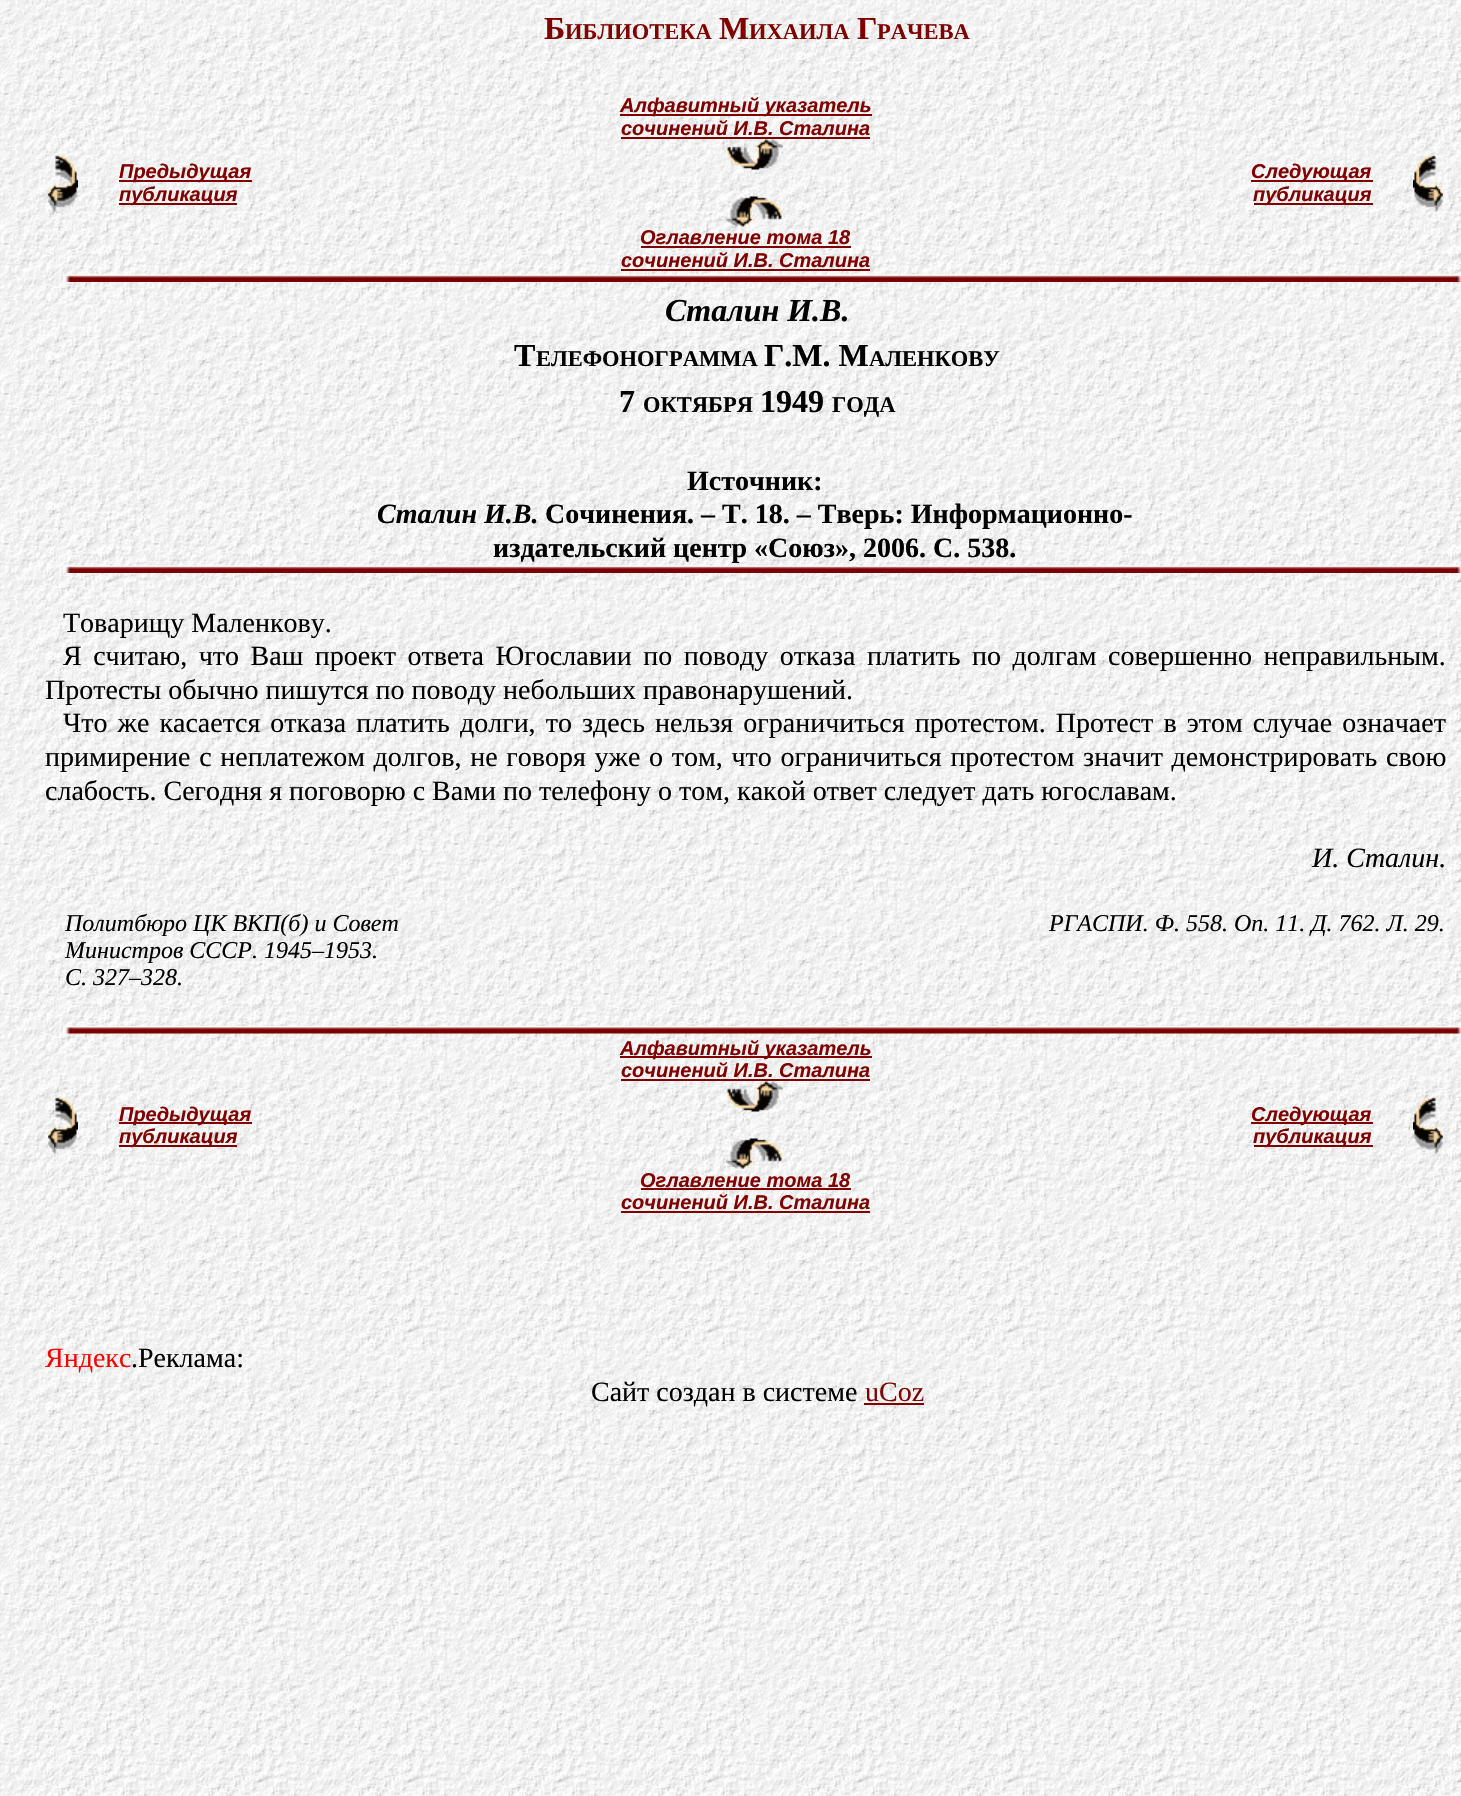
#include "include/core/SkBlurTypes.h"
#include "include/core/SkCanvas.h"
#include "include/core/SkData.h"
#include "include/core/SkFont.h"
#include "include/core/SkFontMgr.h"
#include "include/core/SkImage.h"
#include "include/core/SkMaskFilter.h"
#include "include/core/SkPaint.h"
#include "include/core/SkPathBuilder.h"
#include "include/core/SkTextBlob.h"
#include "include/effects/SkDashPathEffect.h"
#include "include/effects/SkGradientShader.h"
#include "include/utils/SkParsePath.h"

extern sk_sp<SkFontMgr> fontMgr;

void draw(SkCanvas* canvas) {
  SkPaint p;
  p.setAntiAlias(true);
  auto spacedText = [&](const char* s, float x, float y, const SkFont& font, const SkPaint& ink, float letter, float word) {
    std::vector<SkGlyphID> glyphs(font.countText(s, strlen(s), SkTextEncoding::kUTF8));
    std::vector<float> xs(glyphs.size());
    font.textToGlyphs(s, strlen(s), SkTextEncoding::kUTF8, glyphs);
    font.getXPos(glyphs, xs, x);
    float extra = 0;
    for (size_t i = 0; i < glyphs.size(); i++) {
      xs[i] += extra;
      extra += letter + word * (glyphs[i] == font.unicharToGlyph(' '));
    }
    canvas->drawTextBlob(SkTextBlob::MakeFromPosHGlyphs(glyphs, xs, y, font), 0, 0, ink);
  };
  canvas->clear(SK_ColorWHITE);
  canvas->drawImageRect(SkImages::DeferredFromEncodedData(SkData::MakeFromFileName("images/1.png")), SkRect::MakeLTRB(0, 0, 1461, 1796), SkSamplingOptions());
  canvas->drawImageRect(SkImages::DeferredFromEncodedData(SkData::MakeFromFileName("images/2.png")), SkRect::MakeLTRB(48, 155, 78, 212), SkSamplingOptions());
  p.setColor(SkColorSetRGB(128, 0, 0));
  canvas->drawRect(SkRect::MakeLTRB(119, 180, 252, 182), p);
  canvas->drawRect(SkRect::MakeLTRB(119, 203, 237, 205), p);
  canvas->drawRect(SkRect::MakeLTRB(620, 114, 872, 116), p);
  canvas->drawRect(SkRect::MakeLTRB(621, 137, 870, 139), p);
  canvas->drawImageRect(SkImages::DeferredFromEncodedData(SkData::MakeFromFileName("images/3.png")), SkRect::MakeLTRB(727, 139, 783, 170), SkSamplingOptions());
  canvas->drawImageRect(SkImages::DeferredFromEncodedData(SkData::MakeFromFileName("images/4.png")), SkRect::MakeLTRB(726, 196, 782, 227), SkSamplingOptions());
  canvas->drawRect(SkRect::MakeLTRB(641, 246, 851, 248), p);
  canvas->drawRect(SkRect::MakeLTRB(621, 269, 870, 271), p);
  canvas->drawRect(SkRect::MakeLTRB(1251, 180, 1373, 182), p);
  canvas->drawRect(SkRect::MakeLTRB(1254, 203, 1373, 205), p);
  canvas->drawImageRect(SkImages::DeferredFromEncodedData(SkData::MakeFromFileName("images/5.png")), SkRect::MakeLTRB(1413, 155, 1443, 212), SkSamplingOptions());
  canvas->drawImageRect(SkImages::DeferredFromEncodedData(SkData::MakeFromFileName("images/6.png")), SkRect::MakeLTRB(63, 274, 1461, 282), SkSamplingOptions());
  canvas->drawImageRect(SkImages::DeferredFromEncodedData(SkData::MakeFromFileName("images/7.png")), SkRect::MakeLTRB(63, 565, 1461, 573), SkSamplingOptions());
  canvas->drawImageRect(SkImages::DeferredFromEncodedData(SkData::MakeFromFileName("images/8.png")), SkRect::MakeLTRB(63, 1026, 1461, 1034), SkSamplingOptions());
  canvas->drawImageRect(SkImages::DeferredFromEncodedData(SkData::MakeFromFileName("images/9.png")), SkRect::MakeLTRB(48, 1097, 78, 1154), SkSamplingOptions());
  canvas->drawRect(SkRect::MakeLTRB(119, 1122, 252, 1124), p);
  canvas->drawRect(SkRect::MakeLTRB(119, 1145, 237, 1147), p);
  canvas->drawRect(SkRect::MakeLTRB(620, 1056, 872, 1058), p);
  canvas->drawRect(SkRect::MakeLTRB(621, 1079, 870, 1081), p);
  canvas->drawImageRect(SkImages::DeferredFromEncodedData(SkData::MakeFromFileName("images/10.png")), SkRect::MakeLTRB(727, 1081, 783, 1112), SkSamplingOptions());
  canvas->drawImageRect(SkImages::DeferredFromEncodedData(SkData::MakeFromFileName("images/11.png")), SkRect::MakeLTRB(726, 1138, 782, 1169), SkSamplingOptions());
  canvas->drawRect(SkRect::MakeLTRB(641, 1188, 851, 1190), p);
  canvas->drawRect(SkRect::MakeLTRB(621, 1211, 870, 1213), p);
  canvas->drawRect(SkRect::MakeLTRB(1251, 1122, 1373, 1124), p);
  canvas->drawRect(SkRect::MakeLTRB(1254, 1145, 1373, 1147), p);
  canvas->drawImageRect(SkImages::DeferredFromEncodedData(SkData::MakeFromFileName("images/12.png")), SkRect::MakeLTRB(1413, 1097, 1443, 1154), SkSamplingOptions());
  canvas->drawRect(SkRect::MakeLTRB(864, 1403, 924, 1405), p);
  SkFont font1(fontMgr->matchFamilyStyle("Liberation Serif", SkFontStyle::Bold()), 32);
  font1.setSubpixel(true);
  canvas->drawString("Б", 544, 39, font1, p);
  SkFont font2(fontMgr->matchFamilyStyle("Liberation Serif", SkFontStyle::Bold()), 22.5f);
  font2.setSubpixel(true);
  canvas->drawString("ИБЛИОТЕКА", 565, 39, font2, p);
  canvas->drawString("М", 719, 39, font1, p);
  canvas->drawString("ИХАИЛА", 749, 39, font2, p);
  canvas->drawString("Г", 857, 39, font1, p);
  canvas->drawString("РАЧЕВА", 877, 39, font2, p);
  SkFont font3(fontMgr->matchFamilyStyle("Liberation Sans", SkFontStyle::BoldItalic()), 20);
  font3.setSubpixel(true);
  canvas->drawString("Предыдущая", 119, 178, font3, p);
  canvas->drawString("публикация", 119, 201, font3, p);
  canvas->drawString("Алфавитный указатель", 620, 112, font3, p);
  canvas->drawString("сочинений И.В. Сталина", 621, 135, font3, p);
  canvas->drawString("Оглавление тома 18", 640, 244, font3, p);
  canvas->drawString("сочинений И.В. Сталина", 621, 267, font3, p);
  canvas->drawString("Следующая", 1251, 178, font3, p);
  canvas->drawString("публикация", 1253, 201, font3, p);
  SkFont font4(fontMgr->matchFamilyStyle("Liberation Serif", SkFontStyle::BoldItalic()), 32);
  font4.setSubpixel(true);
  p.setColor(SK_ColorBLACK);
  canvas->drawString("Сталин И.В.", 665, 321, font4, p);
  canvas->drawString("Т", 514, 366, font1, p);
  canvas->drawString("ЕЛЕФОНОГРАММА", 536, 366, font2, p);
  canvas->drawString("Г.М. М", 764, 366, font1, p);
  canvas->drawString("АЛЕНКОВУ", 869, 366, font2, p);
  canvas->drawString("7", 619, 412, font1, p);
  canvas->drawString("ОКТЯБРЯ", 643, 412, font2, p);
  canvas->drawString("1949", 760, 412, font1, p);
  canvas->drawString("ГОДА", 832, 412, font2, p);
  SkFont font5(fontMgr->matchFamilyStyle("Liberation Serif", SkFontStyle::Bold()), 28);
  font5.setSubpixel(true);
  canvas->drawString("Источник:", 687, 490, font5, p);
  SkFont font6(fontMgr->matchFamilyStyle("Liberation Serif", SkFontStyle::BoldItalic()), 28);
  font6.setSubpixel(true);
  canvas->drawString("Сталин И.В.", 377, 523, font6, p);
  canvas->drawString("Cочинения. – Т. 18. – Тверь: Информационно-", 545, 523, font5, p);
  canvas->drawString("издательский центр «Союз», 2006. С. 538.", 493, 557, font5, p);
  SkFont font7(fontMgr->matchFamilyStyle("Liberation Serif", SkFontStyle::Normal()), 28);
  font7.setSubpixel(true);
  canvas->drawString("Товарищу Маленкову.", 63, 632, font7, p);
  spacedText("Я считаю, что Ваш проект ответа Югославии по поводу отказа платить по долгам совершенно неправильным.", 63, 665, font7, p, 0, 4.5f);
  canvas->drawString("Протесты обычно пишутся по поводу небольших правонарушений.", 45, 699, font7, p);
  spacedText("Что же касается отказа платить долги, то здесь нельзя ограничиться протестом. Протест в этом случае означает", 63, 732, font7, p, 0, 3.1f);
  spacedText("примирение с неплатежом долгов, не говоря уже о том, что ограничиться протестом значит демонстрировать свою", 45, 766, font7, p, 0, 1.7f);
  canvas->drawString("слабость. Сегодня я поговорю с Вами по телефону о том, какой ответ следует дать югославам.", 45, 800, font7, p);
  SkFont font8(fontMgr->matchFamilyStyle("Liberation Serif", SkFontStyle::Italic()), 28);
  font8.setSubpixel(true);
  canvas->drawString("И. Сталин.", 1312, 867, font8, p);
  SkFont font9(fontMgr->matchFamilyStyle("Liberation Serif", SkFontStyle::Italic()), 24);
  font9.setSubpixel(true);
  canvas->drawString("Политбюро ЦК ВКП(б) и Совет", 65, 931, font9, p);
  canvas->drawString("Министров СССР. 1945–1953.", 65, 958, font9, p);
  canvas->drawString("С. 327–328.", 65, 985, font9, p);
  canvas->drawString("РГАСПИ. Ф. 558. Оп. 11. Д. 762. Л. 29.", 1049, 931, font9, p);
  p.setColor(SkColorSetRGB(128, 0, 0));
  canvas->drawString("Предыдущая", 119, 1121, font3, p);
  canvas->drawString("публикация", 119, 1143, font3, p);
  canvas->drawString("Алфавитный указатель", 620, 1055, font3, p);
  canvas->drawString("сочинений И.В. Сталина", 621, 1077, font3, p);
  canvas->drawString("Оглавление тома 18", 640, 1187, font3, p);
  canvas->drawString("сочинений И.В. Сталина", 621, 1209, font3, p);
  canvas->drawString("Следующая", 1251, 1121, font3, p);
  canvas->drawString("публикация", 1253, 1143, font3, p);
  p.setColor(SkColorSetRGB(255, 0, 0));
  canvas->drawString("Яндекс", 45, 1367, font7, p);
  p.setColor(SK_ColorBLACK);
  canvas->drawString(".Реклама:", 131, 1367, font7, p);
  canvas->drawString("Сайт создан в системе", 591, 1401, font7, p);
  p.setColor(SkColorSetRGB(128, 0, 0));
  canvas->drawString("uCoz", 865, 1401, font7, p);
}
